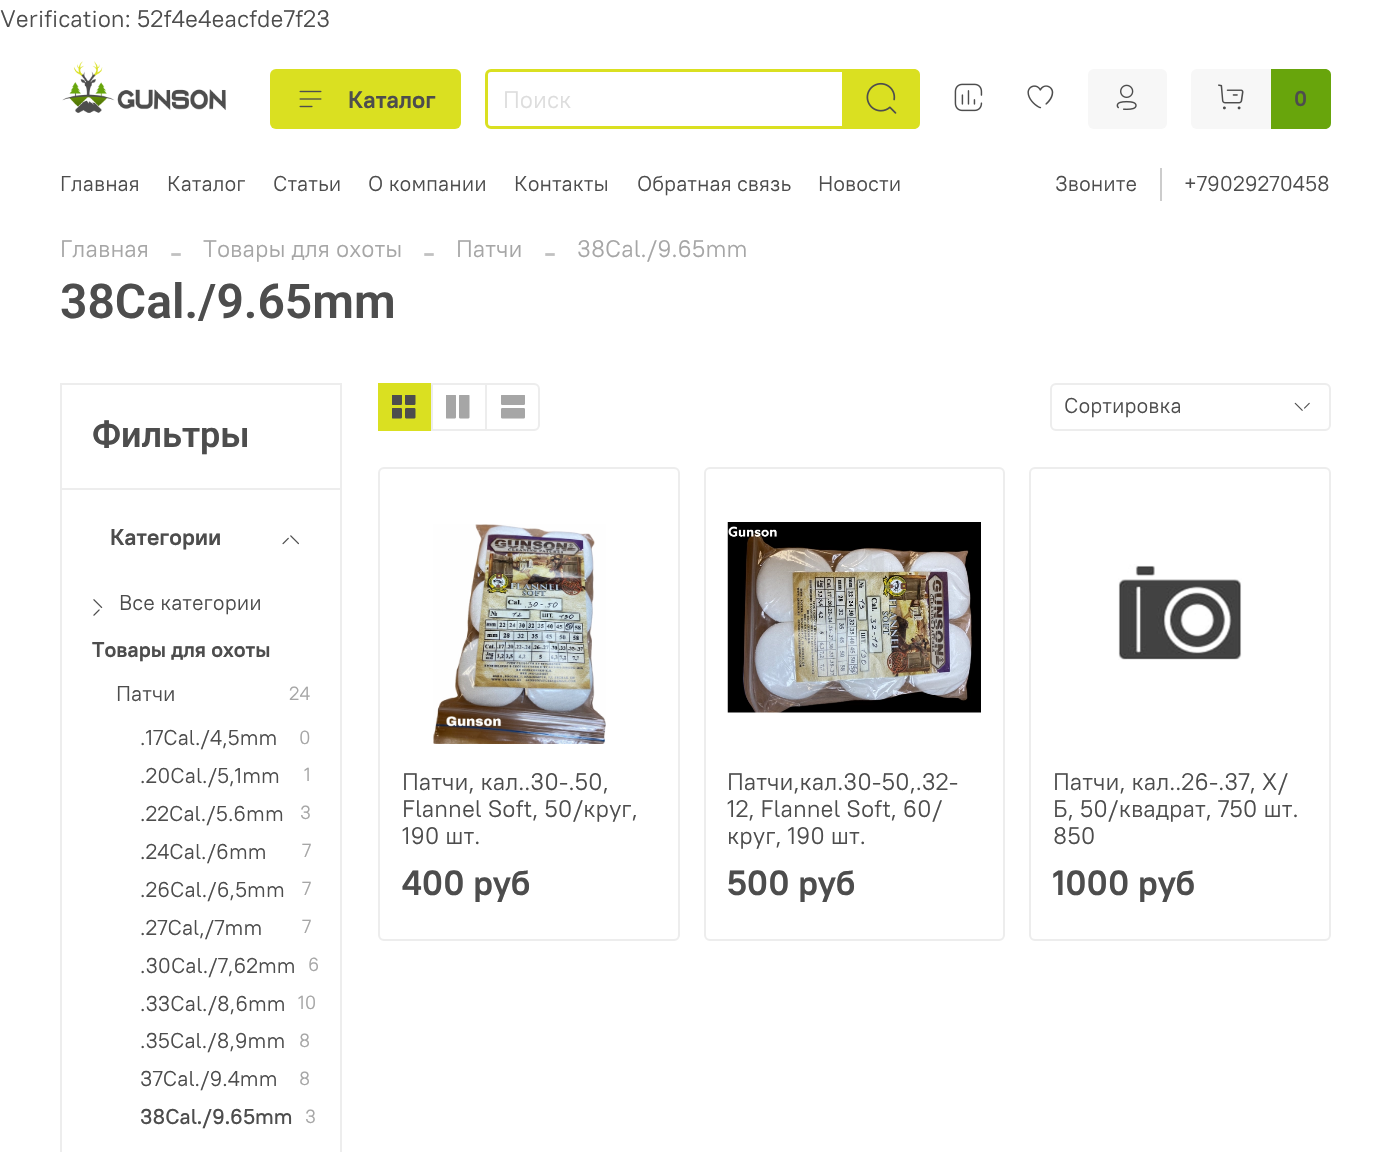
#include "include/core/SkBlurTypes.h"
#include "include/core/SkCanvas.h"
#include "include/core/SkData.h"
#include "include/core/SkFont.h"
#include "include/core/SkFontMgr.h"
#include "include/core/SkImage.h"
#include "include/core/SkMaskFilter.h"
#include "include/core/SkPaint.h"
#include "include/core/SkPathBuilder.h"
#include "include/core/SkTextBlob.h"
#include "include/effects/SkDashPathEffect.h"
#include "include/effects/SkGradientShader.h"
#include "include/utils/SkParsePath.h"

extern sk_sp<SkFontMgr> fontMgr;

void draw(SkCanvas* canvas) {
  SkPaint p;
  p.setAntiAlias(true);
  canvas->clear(SK_ColorWHITE);
  canvas->drawImageRect(SkImages::DeferredFromEncodedData(SkData::MakeFromFileName("images/1.png")), SkRect::MakeLTRB(62, 61, 226, 113), SkSamplingOptions());
  p.setColor(SkColorSetRGB(218, 224, 33));
  canvas->drawRoundRect(SkRect::MakeLTRB(270, 69, 461, 129), 6, 6, p);
  canvas->drawImageRect(SkImages::DeferredFromEncodedData(SkData::MakeFromFileName("images/2.png")), SkRect::MakeLTRB(299, 90, 322, 108), SkSamplingOptions());
  p.setStyle(SkPaint::kStroke_Style);
  p.setStrokeWidth(3);
  canvas->drawPath(SkPathBuilder().moveTo(491, 70.5f).lineTo(843.5f, 70.5f).lineTo(843.5f, 127.5f).lineTo(491, 127.5f).cubicTo(488.5f, 127.5f, 486.5f, 125.5f, 486.5f, 123).lineTo(486.5f, 75).cubicTo(486.5f, 72.5f, 488.5f, 70.5f, 491, 70.5f).close().detach(), p);
  p.setStyle(SkPaint::kFill_Style);
  canvas->drawPath(SkPathBuilder().moveTo(845, 69).lineTo(914, 69).cubicTo(917.5f, 69, 920, 71.5f, 920, 75).lineTo(920, 123).cubicTo(920, 126.5f, 917.5f, 129, 914, 129).lineTo(845, 129).close().detach(), p);
  canvas->drawImageRect(SkImages::DeferredFromEncodedData(SkData::MakeFromFileName("images/3.png")), SkRect::MakeLTRB(866, 82, 897, 114), SkSamplingOptions());
  canvas->drawImageRect(SkImages::DeferredFromEncodedData(SkData::MakeFromFileName("images/4.png")), SkRect::MakeLTRB(954, 83, 983, 112), SkSamplingOptions());
  canvas->drawImageRect(SkImages::DeferredFromEncodedData(SkData::MakeFromFileName("images/5.png")), SkRect::MakeLTRB(1027, 85, 1054, 109), SkSamplingOptions());
  p.setColor(SkColorSetRGB(247, 247, 247));
  canvas->drawRoundRect(SkRect::MakeLTRB(1088, 69, 1167, 129), 6, 6, p);
  canvas->drawImageRect(SkImages::DeferredFromEncodedData(SkData::MakeFromFileName("images/6.png")), SkRect::MakeLTRB(1116, 84, 1137, 110), SkSamplingOptions());
  canvas->drawRoundRect(SkRect::MakeLTRB(1191, 69, 1331, 129), 6, 6, p);
  canvas->drawImageRect(SkImages::DeferredFromEncodedData(SkData::MakeFromFileName("images/7.png")), SkRect::MakeLTRB(1218, 84, 1244, 110), SkSamplingOptions());
  p.setColor(SkColorSetRGB(104, 165, 12));
  canvas->drawPath(SkPathBuilder().moveTo(1271, 69).lineTo(1325, 69).cubicTo(1328.5f, 69, 1331, 71.5f, 1331, 75).lineTo(1331, 123).cubicTo(1331, 126.5f, 1328.5f, 129, 1325, 129).lineTo(1271, 129).close().detach(), p);
  p.setColor(SkColorSetRGB(204, 204, 204));
  canvas->drawRect(SkRect::MakeLTRB(1160, 168, 1162, 201), p);
  p.setStyle(SkPaint::kStroke_Style);
  p.setStrokeWidth(2);
  p.setColor(SkColorSetRGB(237, 237, 237));
  canvas->drawRect(SkRect::MakeLTRB(61, 384, 341, 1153), p);
  p.setStyle(SkPaint::kFill_Style);
  canvas->drawRect(SkRect::MakeLTRB(62, 488, 341, 490), p);
  canvas->drawImageRect(SkImages::DeferredFromEncodedData(SkData::MakeFromFileName("images/8.png")), SkRect::MakeLTRB(282, 535, 299, 545), SkSamplingOptions());
  canvas->drawImageRect(SkImages::DeferredFromEncodedData(SkData::MakeFromFileName("images/9.png")), SkRect::MakeLTRB(93, 599, 103, 616), SkSamplingOptions());
  p.setStyle(SkPaint::kStroke_Style);
  canvas->drawRoundRect(SkRect::MakeLTRB(379, 384, 539, 430), 5, 5, p);
  p.setStyle(SkPaint::kFill_Style);
  p.setColor(SkColorSetRGB(218, 224, 33));
  canvas->drawRect(SkRect::MakeLTRB(378, 383, 431, 431), p);
  p.setColor(SkColorSetRGB(237, 237, 237));
  canvas->drawRect(SkRect::MakeLTRB(431, 383, 433, 431), p);
  canvas->drawImageRect(SkImages::DeferredFromEncodedData(SkData::MakeFromFileName("images/10.png")), SkRect::MakeLTRB(392, 395, 416, 419), SkSamplingOptions());
  canvas->drawRect(SkRect::MakeLTRB(485, 383, 487, 431), p);
  canvas->drawImageRect(SkImages::DeferredFromEncodedData(SkData::MakeFromFileName("images/11.png")), SkRect::MakeLTRB(446, 395, 470, 419), SkSamplingOptions());
  canvas->drawImageRect(SkImages::DeferredFromEncodedData(SkData::MakeFromFileName("images/12.png")), SkRect::MakeLTRB(501, 395, 525, 419), SkSamplingOptions());
  p.setStyle(SkPaint::kStroke_Style);
  canvas->drawRoundRect(SkRect::MakeLTRB(1051, 384, 1330, 430), 5, 5, p);
  canvas->drawImageRect(SkImages::DeferredFromEncodedData(SkData::MakeFromFileName("images/13.png")), SkRect::MakeLTRB(1294, 402, 1310, 411), SkSamplingOptions());
  canvas->drawRoundRect(SkRect::MakeLTRB(379, 468, 679, 940), 5, 5, p);
  canvas->drawImageRect(SkImages::DeferredFromEncodedData(SkData::MakeFromFileName("images/14.png")), SkRect::MakeLTRB(433, 524, 606, 744), SkSamplingOptions());
  canvas->drawRoundRect(SkRect::MakeLTRB(705, 468, 1004, 940), 5, 5, p);
  canvas->drawImageRect(SkImages::DeferredFromEncodedData(SkData::MakeFromFileName("images/15.png")), SkRect::MakeLTRB(727, 522, 981, 713), SkSamplingOptions());
  canvas->drawRoundRect(SkRect::MakeLTRB(1030, 468, 1330, 940), 5, 5, p);
  canvas->drawImageRect(SkImages::DeferredFromEncodedData(SkData::MakeFromFileName("images/16.png")), SkRect::MakeLTRB(1118, 564, 1242, 660), SkSamplingOptions());
  SkFont font1(fontMgr->matchFamilyStyle("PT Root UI", SkFontStyle::Normal()), 24);
  font1.setSubpixel(true);
  p.setStyle(SkPaint::kFill_Style);
  p.setColor(SkColorSetRGB(77, 77, 77));
  canvas->drawString("Verification: 52f4e4eacfde7f23", 0, 27, font1, p);
  SkFont font2(fontMgr->matchFamilyStyle("PT Root UI", SkFontStyle::Bold()), 24);
  font2.setSubpixel(true);
  canvas->drawString("Каталог", 348, 108, font2, p);
  p.setColor(SkColorSetRGB(221, 221, 221));
  canvas->drawString("Поиск", 503, 108, font1, p);
  SkFont font3(fontMgr->matchFamilyStyle("PT Root UI", SkFontStyle::Bold()), 21.5f);
  font3.setSubpixel(true);
  p.setColor(SkColorSetRGB(77, 77, 77));
  canvas->drawString("0", 1294, 106, font3, p);
  SkFont font4(fontMgr->matchFamilyStyle("PT Root UI", SkFontStyle::Normal()), 21.5f);
  font4.setSubpixel(true);
  canvas->drawString("Главная", 60, 191, font4, p);
  canvas->drawString("Каталог", 167, 191, font4, p);
  canvas->drawString("Статьи", 273, 191, font4, p);
  canvas->drawString("О компании", 368, 191, font4, p);
  canvas->drawString("Контакты", 514, 191, font4, p);
  canvas->drawString("Обратная связь", 637, 191, font4, p);
  canvas->drawString("Новости", 818, 191, font4, p);
  canvas->drawString("Звоните", 1055, 191, font4, p);
  canvas->drawString("+79029270458", 1184, 191, font4, p);
  p.setColor(SkColorSetRGB(166, 166, 166));
  canvas->drawString("Главная", 60, 257, font1, p);
  SkFont font5(fontMgr->matchFamilyStyle("Liberation Serif", SkFontStyle::Normal()), 36);
  font5.setSubpixel(true);
  p.setColor(SkColorSetRGB(193, 193, 193));
  canvas->drawString("-", 170, 263, font5, p);
  p.setColor(SkColorSetRGB(166, 166, 166));
  canvas->drawString("Товары для охоты", 203, 257, font1, p);
  p.setColor(SkColorSetRGB(193, 193, 193));
  canvas->drawString("-", 423, 263, font5, p);
  p.setColor(SkColorSetRGB(166, 166, 166));
  canvas->drawString("Патчи", 456, 257, font1, p);
  p.setColor(SkColorSetRGB(193, 193, 193));
  canvas->drawString("-", 544, 263, font5, p);
  p.setColor(SkColorSetRGB(166, 166, 166));
  canvas->drawString("38Cal./9.65mm", 577, 257, font1, p);
  SkFont font6(fontMgr->matchFamilyStyle("Roboto", SkFontStyle(600, SkFontStyle::kNormal_Width, SkFontStyle::kUpright_Slant)), 48);
  font6.setSubpixel(true);
  p.setColor(SkColorSetRGB(77, 77, 77));
  canvas->drawString("38Cal./9.65mm", 60, 318, font6, p);
  SkFont font7(fontMgr->matchFamilyStyle("Roboto", SkFontStyle(600, SkFontStyle::kNormal_Width, SkFontStyle::kUpright_Slant)), 36);
  font7.setSubpixel(true);
  canvas->drawString("Фильтры", 92, 447, font7, p);
  SkFont font8(fontMgr->matchFamilyStyle("PT Root UI", SkFontStyle::Bold()), 23);
  font8.setSubpixel(true);
  canvas->drawString("Категории", 110, 545, font8, p);
  canvas->drawString("Все категории", 119, 610, font4, p);
  canvas->drawString("Товары для охоты", 92, 657, font3, p);
  canvas->drawString("Патчи", 116, 701, font4, p);
  SkFont font9(fontMgr->matchFamilyStyle("PT Root UI", SkFontStyle::Normal()), 19);
  font9.setSubpixel(true);
  p.setColor(SkColorSetRGB(166, 166, 166));
  canvas->drawString("24", 289, 700, font9, p);
  p.setColor(SkColorSetRGB(77, 77, 77));
  canvas->drawString(".17Cal./4,5mm", 140, 745, font4, p);
  p.setColor(SkColorSetRGB(166, 166, 166));
  canvas->drawString("0", 299, 744, font9, p);
  p.setColor(SkColorSetRGB(77, 77, 77));
  canvas->drawString(".20Cal./5,1mm", 140, 783, font4, p);
  p.setColor(SkColorSetRGB(166, 166, 166));
  canvas->drawString("1", 304, 781, font9, p);
  p.setColor(SkColorSetRGB(77, 77, 77));
  canvas->drawString(".22Cal./5.6mm", 140, 821, font4, p);
  p.setColor(SkColorSetRGB(166, 166, 166));
  canvas->drawString("3", 300, 819, font9, p);
  p.setColor(SkColorSetRGB(77, 77, 77));
  canvas->drawString(".24Cal./6mm", 140, 859, font4, p);
  p.setColor(SkColorSetRGB(166, 166, 166));
  canvas->drawString("7", 302, 857, font9, p);
  p.setColor(SkColorSetRGB(77, 77, 77));
  canvas->drawString(".26Cal./6,5mm", 140, 897, font4, p);
  p.setColor(SkColorSetRGB(166, 166, 166));
  canvas->drawString("7", 302, 895, font9, p);
  p.setColor(SkColorSetRGB(77, 77, 77));
  canvas->drawString(".27Cal,/7mm", 140, 935, font4, p);
  p.setColor(SkColorSetRGB(166, 166, 166));
  canvas->drawString("7", 302, 933, font9, p);
  p.setColor(SkColorSetRGB(77, 77, 77));
  canvas->drawString(".30Cal./7,62mm", 140, 973, font4, p);
  p.setColor(SkColorSetRGB(166, 166, 166));
  canvas->drawString("6", 308, 971, font9, p);
  p.setColor(SkColorSetRGB(77, 77, 77));
  canvas->drawString(".33Cal./8,6mm", 140, 1011, font4, p);
  p.setColor(SkColorSetRGB(166, 166, 166));
  canvas->drawString("10", 298, 1009, font9, p);
  p.setColor(SkColorSetRGB(77, 77, 77));
  canvas->drawString(".35Cal./8,9mm", 140, 1048, font4, p);
  p.setColor(SkColorSetRGB(166, 166, 166));
  canvas->drawString("8", 299, 1047, font9, p);
  p.setColor(SkColorSetRGB(77, 77, 77));
  canvas->drawString("37Cal./9.4mm", 140, 1086, font4, p);
  p.setColor(SkColorSetRGB(166, 166, 166));
  canvas->drawString("8", 299, 1085, font9, p);
  SkFont font10(fontMgr->matchFamilyStyle("PT Root UI", SkFontStyle(500, SkFontStyle::kNormal_Width, SkFontStyle::kUpright_Slant)), 21.5f);
  font10.setSubpixel(true);
  p.setColor(SkColorSetRGB(77, 77, 77));
  canvas->drawString("38Cal./9.65mm", 140, 1124, font10, p);
  p.setColor(SkColorSetRGB(166, 166, 166));
  canvas->drawString("3", 305, 1123, font9, p);
  p.setColor(SkColorSetRGB(77, 77, 77));
  canvas->drawString("Сортировка", 1064, 413, font4, p);
  canvas->drawString("Патчи, кал..30-.50,", 402, 790, font1, p);
  canvas->drawString("Flannel Soft, 50/круг,", 402, 817, font1, p);
  canvas->drawString("190 шт.", 402, 844, font1, p);
  SkFont font11(fontMgr->matchFamilyStyle("PT Root UI", SkFontStyle::Bold()), 35);
  font11.setSubpixel(true);
  canvas->drawString("400 руб", 402, 895, font11, p);
  canvas->drawString("Патчи,кал.30-50,.32-", 727, 790, font1, p);
  canvas->drawString("12, Flannel Soft, 60/", 727, 817, font1, p);
  canvas->drawString("круг, 190 шт.", 727, 844, font1, p);
  canvas->drawString("500 руб", 727, 895, font11, p);
  canvas->drawString("Патчи, кал..26-.37, Х/", 1053, 790, font1, p);
  canvas->drawString("Б, 50/квадрат, 750 шт.", 1053, 817, font1, p);
  canvas->drawString("850", 1053, 844, font1, p);
  canvas->drawString("1000 руб", 1053, 895, font11, p);
}
